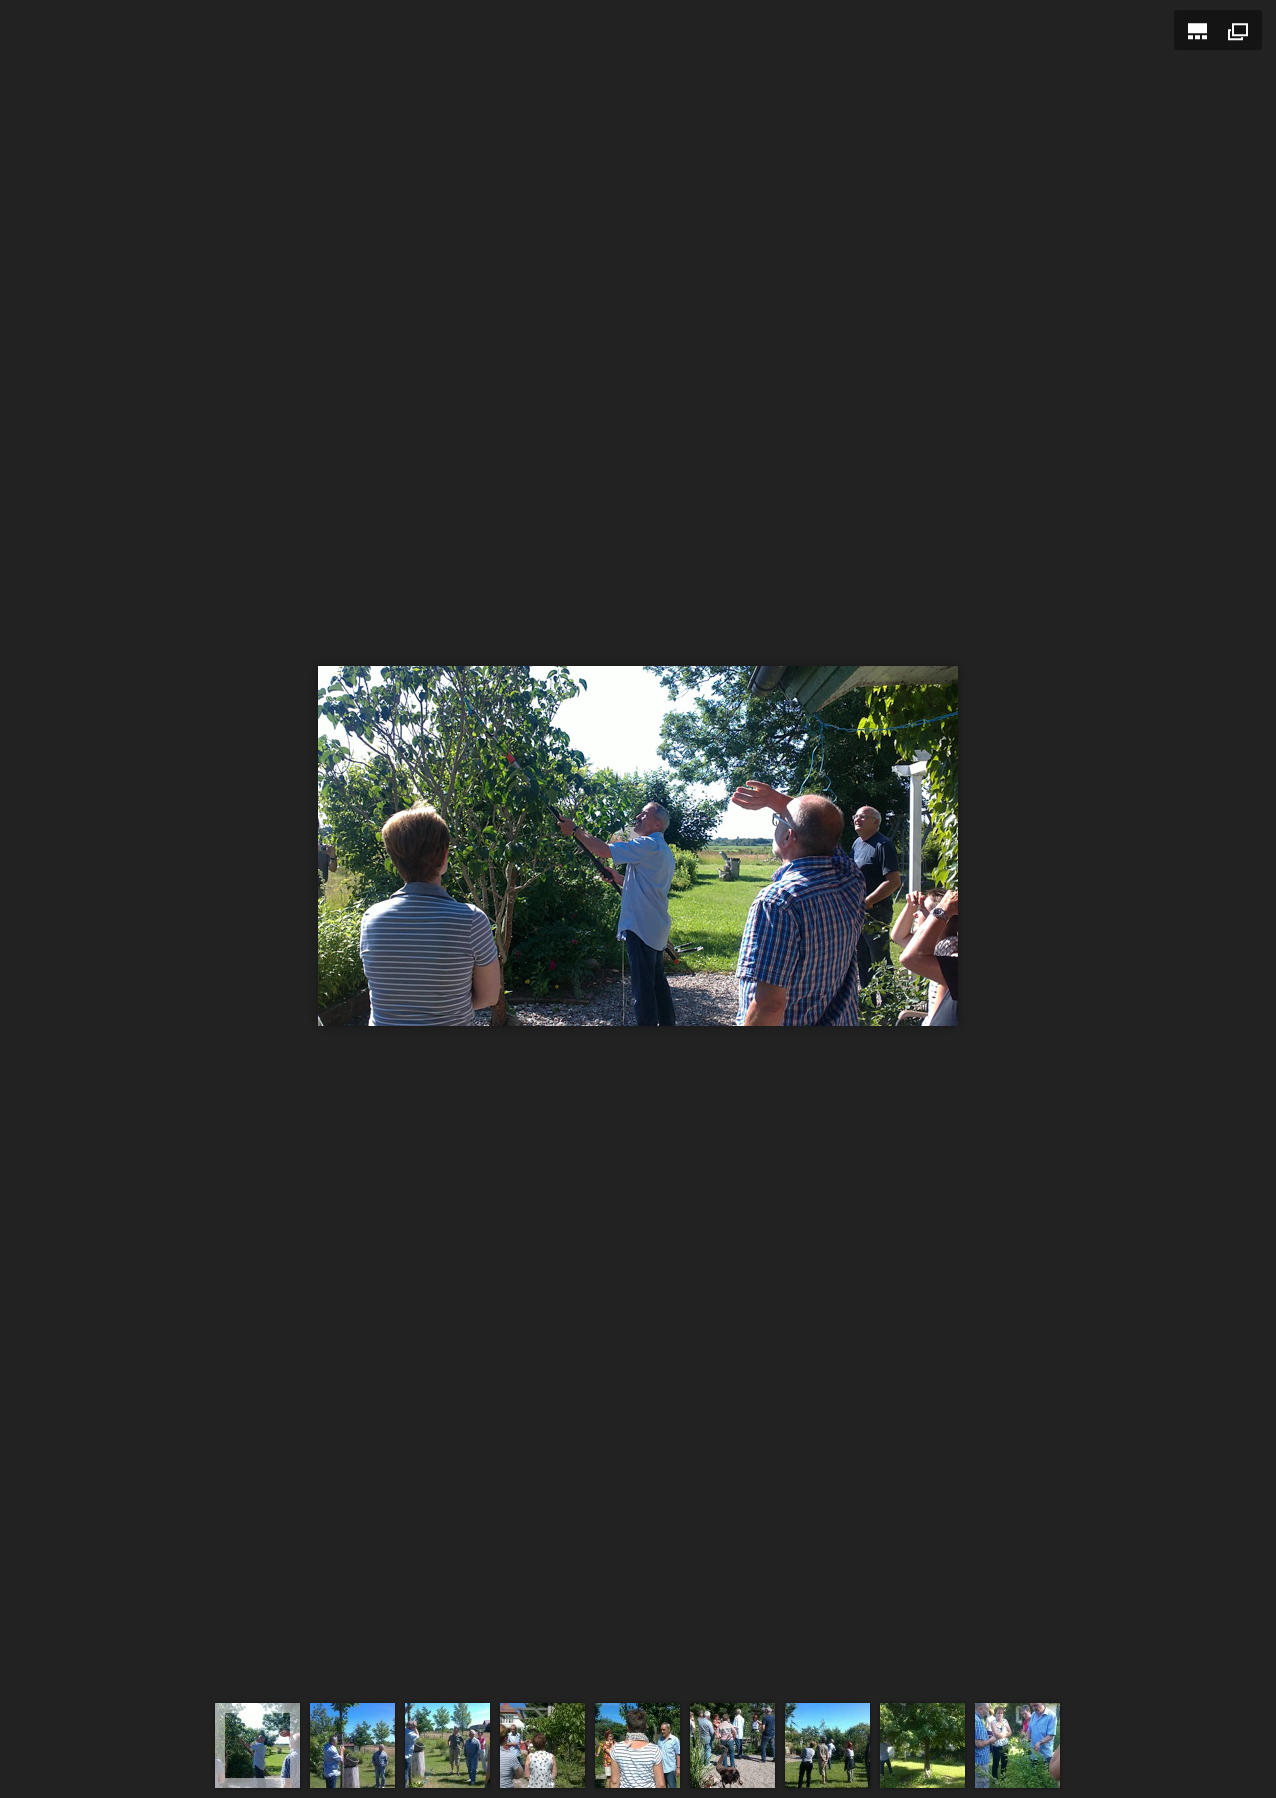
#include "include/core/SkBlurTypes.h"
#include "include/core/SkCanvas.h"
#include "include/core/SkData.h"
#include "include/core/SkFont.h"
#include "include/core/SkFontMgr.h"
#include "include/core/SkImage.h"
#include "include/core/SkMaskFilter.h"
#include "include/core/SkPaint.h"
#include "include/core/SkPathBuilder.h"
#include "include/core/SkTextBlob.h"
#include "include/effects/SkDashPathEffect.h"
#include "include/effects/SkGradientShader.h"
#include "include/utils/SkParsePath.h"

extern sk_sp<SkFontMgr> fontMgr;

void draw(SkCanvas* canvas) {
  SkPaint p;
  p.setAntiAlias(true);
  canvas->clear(SkColorSetRGB(34, 34, 34));
  p.setColor(SkColorSetRGB(20, 20, 20));
  canvas->drawRoundRect(SkRect::MakeLTRB(1174, 10, 1262, 50), 3, 3, p);
  canvas->drawImageRect(SkImages::DeferredFromEncodedData(SkData::MakeFromFileName("images/1.png")), SkRect::MakeLTRB(1188, 23, 1207, 40), SkSamplingOptions());
  canvas->drawImageRect(SkImages::DeferredFromEncodedData(SkData::MakeFromFileName("images/2.png")), SkRect::MakeLTRB(1228, 23, 1248, 41), SkSamplingOptions());
  p.setColor(SkColorSetARGB(102, 0, 0, 0));
  p.setMaskFilter(SkMaskFilter::MakeBlur(kNormal_SkBlurStyle, 5));
  canvas->drawRect(SkRect::MakeLTRB(318, 666, 958, 1026), p);
  p.setMaskFilter(nullptr);
  canvas->drawImageRect(SkImages::DeferredFromEncodedData(SkData::MakeFromFileName("images/3.png")), SkRect::MakeLTRB(318, 666, 958, 1026), SkSamplingOptions());
  p.setMaskFilter(SkMaskFilter::MakeBlur(kNormal_SkBlurStyle, 2.5f));
  canvas->drawRect(SkRect::MakeLTRB(215, 1703, 300, 1788), p);
  p.setMaskFilter(nullptr);
  canvas->drawImageRect(SkImages::DeferredFromEncodedData(SkData::MakeFromFileName("images/4.png")), SkRect::MakeLTRB(215, 1703, 300, 1788), SkSamplingOptions());
  p.setStyle(SkPaint::kStroke_Style);
  p.setStrokeWidth(10);
  p.setColor(SkColorSetARGB(128, 255, 255, 255));
  canvas->drawRect(SkRect::MakeLTRB(220, 1708, 295, 1783), p);
  p.setStyle(SkPaint::kFill_Style);
  p.setColor(SkColorSetARGB(102, 0, 0, 0));
  p.setMaskFilter(SkMaskFilter::MakeBlur(kNormal_SkBlurStyle, 2.5f));
  canvas->drawRect(SkRect::MakeLTRB(310, 1703, 395, 1788), p);
  p.setMaskFilter(nullptr);
  canvas->drawImageRect(SkImages::DeferredFromEncodedData(SkData::MakeFromFileName("images/5.png")), SkRect::MakeLTRB(310, 1703, 395, 1788), SkSamplingOptions());
  p.setMaskFilter(SkMaskFilter::MakeBlur(kNormal_SkBlurStyle, 2.5f));
  canvas->drawRect(SkRect::MakeLTRB(405, 1703, 490, 1788), p);
  p.setMaskFilter(nullptr);
  canvas->drawImageRect(SkImages::DeferredFromEncodedData(SkData::MakeFromFileName("images/6.png")), SkRect::MakeLTRB(405, 1703, 490, 1788), SkSamplingOptions());
  p.setMaskFilter(SkMaskFilter::MakeBlur(kNormal_SkBlurStyle, 2.5f));
  canvas->drawRect(SkRect::MakeLTRB(500, 1703, 585, 1788), p);
  p.setMaskFilter(nullptr);
  canvas->drawImageRect(SkImages::DeferredFromEncodedData(SkData::MakeFromFileName("images/7.png")), SkRect::MakeLTRB(500, 1703, 585, 1788), SkSamplingOptions());
  p.setMaskFilter(SkMaskFilter::MakeBlur(kNormal_SkBlurStyle, 2.5f));
  canvas->drawRect(SkRect::MakeLTRB(595, 1703, 680, 1788), p);
  p.setMaskFilter(nullptr);
  canvas->drawImageRect(SkImages::DeferredFromEncodedData(SkData::MakeFromFileName("images/8.png")), SkRect::MakeLTRB(595, 1703, 680, 1788), SkSamplingOptions());
  p.setMaskFilter(SkMaskFilter::MakeBlur(kNormal_SkBlurStyle, 2.5f));
  canvas->drawRect(SkRect::MakeLTRB(690, 1703, 775, 1788), p);
  p.setMaskFilter(nullptr);
  canvas->drawImageRect(SkImages::DeferredFromEncodedData(SkData::MakeFromFileName("images/9.png")), SkRect::MakeLTRB(690, 1703, 775, 1788), SkSamplingOptions());
  p.setMaskFilter(SkMaskFilter::MakeBlur(kNormal_SkBlurStyle, 2.5f));
  canvas->drawRect(SkRect::MakeLTRB(785, 1703, 870, 1788), p);
  p.setMaskFilter(nullptr);
  canvas->drawImageRect(SkImages::DeferredFromEncodedData(SkData::MakeFromFileName("images/10.png")), SkRect::MakeLTRB(785, 1703, 870, 1788), SkSamplingOptions());
  p.setMaskFilter(SkMaskFilter::MakeBlur(kNormal_SkBlurStyle, 2.5f));
  canvas->drawRect(SkRect::MakeLTRB(880, 1703, 965, 1788), p);
  p.setMaskFilter(nullptr);
  canvas->drawImageRect(SkImages::DeferredFromEncodedData(SkData::MakeFromFileName("images/11.png")), SkRect::MakeLTRB(880, 1703, 965, 1788), SkSamplingOptions());
  p.setMaskFilter(SkMaskFilter::MakeBlur(kNormal_SkBlurStyle, 2.5f));
  canvas->drawRect(SkRect::MakeLTRB(975, 1703, 1060, 1788), p);
  p.setMaskFilter(nullptr);
  canvas->drawImageRect(SkImages::DeferredFromEncodedData(SkData::MakeFromFileName("images/12.png")), SkRect::MakeLTRB(975, 1703, 1060, 1788), SkSamplingOptions());
}
